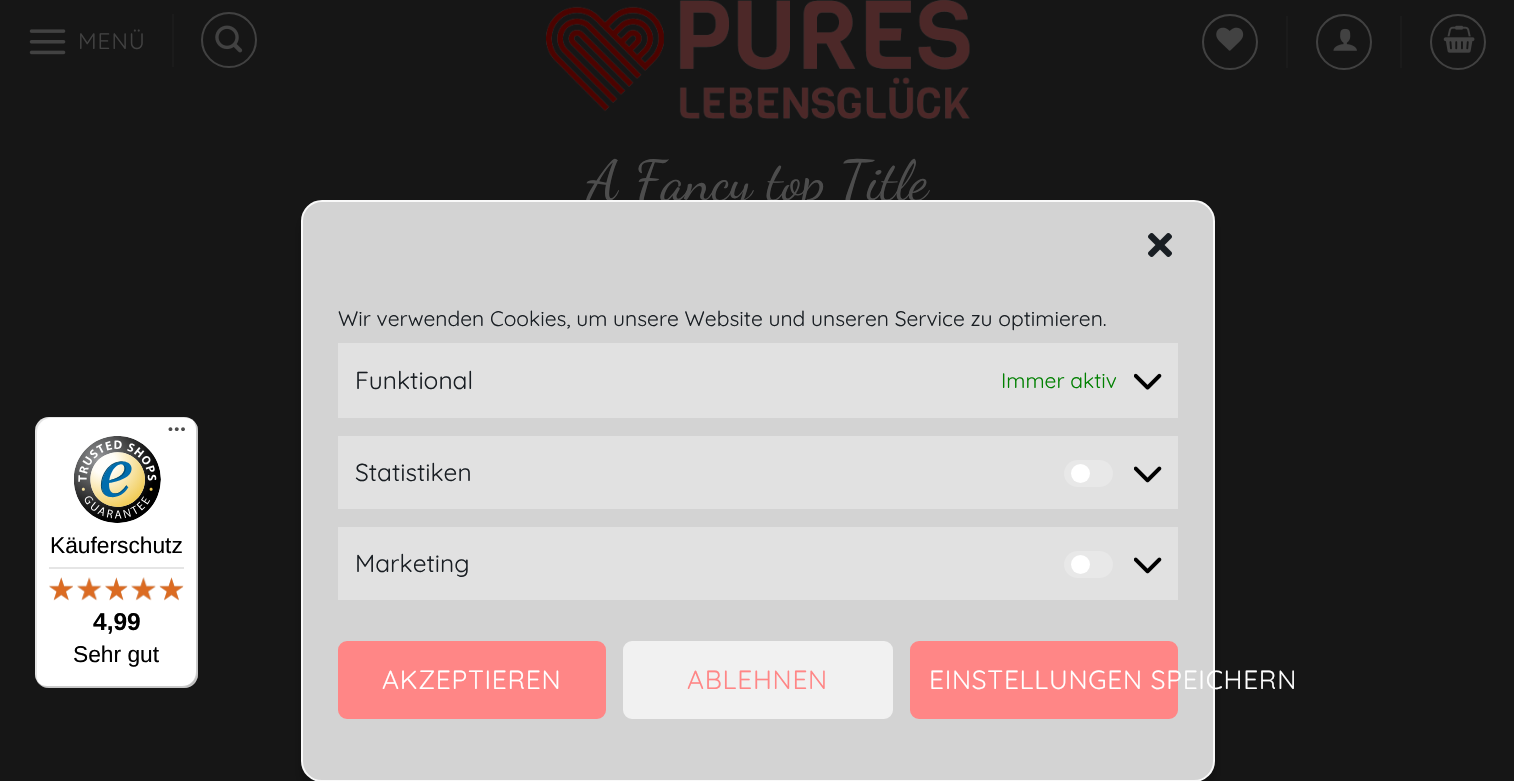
#include "include/core/SkBlurTypes.h"
#include "include/core/SkCanvas.h"
#include "include/core/SkData.h"
#include "include/core/SkFont.h"
#include "include/core/SkFontMgr.h"
#include "include/core/SkImage.h"
#include "include/core/SkMaskFilter.h"
#include "include/core/SkPaint.h"
#include "include/core/SkPathBuilder.h"
#include "include/core/SkTextBlob.h"
#include "include/effects/SkDashPathEffect.h"
#include "include/effects/SkGradientShader.h"
#include "include/utils/SkParsePath.h"

extern sk_sp<SkFontMgr> fontMgr;

void draw(SkCanvas* canvas) {
  SkPaint p;
  p.setAntiAlias(true);
  auto spacedText = [&](const char* s, float x, float y, const SkFont& font, const SkPaint& ink, float letter, float word) {
    std::vector<SkGlyphID> glyphs(font.countText(s, strlen(s), SkTextEncoding::kUTF8));
    std::vector<float> xs(glyphs.size());
    font.textToGlyphs(s, strlen(s), SkTextEncoding::kUTF8, glyphs);
    font.getXPos(glyphs, xs, x);
    float extra = 0;
    for (size_t i = 0; i < glyphs.size(); i++) {
      xs[i] += extra;
      extra += letter + word * (glyphs[i] == font.unicharToGlyph(' '));
    }
    canvas->drawTextBlob(SkTextBlob::MakeFromPosHGlyphs(glyphs, xs, y, font), 0, 0, ink);
  };
  canvas->clear(SkColorSetRGB(22, 22, 22));
  canvas->drawImageRect(SkImages::DeferredFromEncodedData(SkData::MakeFromFileName("images/1.png")), SkRect::MakeLTRB(29, 29, 66, 55), SkSamplingOptions());
  p.setColor(SkColorSetRGB(27, 27, 27));
  canvas->drawRect(SkRect::MakeLTRB(172, 14, 174, 67), p);
  p.setStyle(SkPaint::kStroke_Style);
  p.setStrokeWidth(2);
  p.setColor(SkColorSetRGB(65, 65, 65));
  canvas->drawCircle(229, 40, 27, p);
  canvas->drawImageRect(SkImages::DeferredFromEncodedData(SkData::MakeFromFileName("images/2.png")), SkRect::MakeLTRB(215, 25, 243, 53), SkSamplingOptions());
  canvas->drawImageRect(SkImages::DeferredFromEncodedData(SkData::MakeFromFileName("images/3.png")), SkRect::MakeLTRB(546, 0, 970, 119), SkSamplingOptions());
  canvas->drawCircle(1230, 42, 27, p);
  canvas->drawImageRect(SkImages::DeferredFromEncodedData(SkData::MakeFromFileName("images/4.png")), SkRect::MakeLTRB(1216, 27, 1244, 51), SkSamplingOptions());
  p.setStyle(SkPaint::kFill_Style);
  p.setColor(SkColorSetRGB(27, 27, 27));
  canvas->drawRect(SkRect::MakeLTRB(1286, 16, 1288, 68), p);
  p.setStyle(SkPaint::kStroke_Style);
  p.setColor(SkColorSetRGB(65, 65, 65));
  canvas->drawCircle(1344, 42, 27, p);
  canvas->drawImageRect(SkImages::DeferredFromEncodedData(SkData::MakeFromFileName("images/5.png")), SkRect::MakeLTRB(1333, 28, 1357, 51), SkSamplingOptions());
  p.setStyle(SkPaint::kFill_Style);
  p.setColor(SkColorSetRGB(27, 27, 27));
  canvas->drawRect(SkRect::MakeLTRB(1400, 16, 1402, 68), p);
  p.setStyle(SkPaint::kStroke_Style);
  p.setColor(SkColorSetRGB(65, 65, 65));
  canvas->drawCircle(1458, 42, 27, p);
  canvas->drawImageRect(SkImages::DeferredFromEncodedData(SkData::MakeFromFileName("images/6.png")), SkRect::MakeLTRB(1443, 25, 1475, 53), SkSamplingOptions());
  p.setStyle(SkPaint::kFill_Style);
  p.setColor(SK_ColorWHITE);
  canvas->drawRoundRect(SkRect::MakeLTRB(35, 417, 198, 688), 14, 14, p);
  p.setColor(SkColorSetARGB(26, 0, 0, 0));
  canvas->drawPath(SkPathBuilder().moveTo(51, 418).lineTo(186, 418).cubicTo(188, 418, 191, 419, 193, 420).cubicTo(190, 418, 187, 417, 184, 417).lineTo(49, 417).cubicTo(41, 417, 35, 423, 35, 431).lineTo(35, 674).cubicTo(35, 679, 37, 683, 41, 685).cubicTo(38, 683, 37, 679, 37, 676).lineTo(37, 432).cubicTo(37, 425, 43, 418, 51, 418).close().detach(), p);
  p.setColor(SkColorSetARGB(51, 0, 0, 0));
  canvas->drawPath(SkPathBuilder().moveTo(38, 682).cubicTo(40, 686, 44, 688, 49, 688).lineTo(184, 688).cubicTo(192, 688, 198, 682, 198, 674).lineTo(198, 431).cubicTo(198, 427, 196, 423, 193, 421).cubicTo(195, 423, 196, 426, 196, 429).lineTo(196, 672).cubicTo(196, 680, 190, 686, 182, 686).lineTo(47, 686).cubicTo(44, 686, 40, 685, 38, 682).close().detach(), p);
  p.setColor(SkColorSetARGB(51, 50, 50, 50));
  canvas->drawPath(SkPathBuilder().moveTo(38, 682).cubicTo(40, 686, 44, 688, 49, 688).lineTo(184, 688).cubicTo(192, 688, 198, 682, 198, 674).lineTo(198, 431).cubicTo(198, 428, 197, 425, 195, 422).cubicTo(196, 424, 197, 427, 197, 429).lineTo(197, 673).cubicTo(197, 680, 190, 687, 183, 687).lineTo(48, 687).cubicTo(44, 687, 40, 685, 38, 682).close().detach(), p);
  p.setColor(SkColorSetARGB(77, 255, 255, 255));
  canvas->drawPath(SkPathBuilder().moveTo(40, 684).cubicTo(42, 687, 45, 688, 49, 688).lineTo(184, 688).cubicTo(192, 688, 198, 682, 198, 674).lineTo(198, 431).cubicTo(198, 427, 197, 424, 194, 422).cubicTo(196, 424, 197, 427, 197, 430).lineTo(197, 673).cubicTo(197, 681, 191, 687, 183, 687).lineTo(48, 687).cubicTo(45, 687, 42, 686, 40, 684).close().detach(), p);
  canvas->drawImageRect(SkImages::DeferredFromEncodedData(SkData::MakeFromFileName("images/7.png")), SkRect::MakeLTRB(168, 427, 185, 431), SkSamplingOptions());
  canvas->drawImageRect(SkImages::DeferredFromEncodedData(SkData::MakeFromFileName("images/8.png")), SkRect::MakeLTRB(74, 436, 161, 523), SkSamplingOptions());
  p.setColor(SkColorSetRGB(229, 229, 229));
  canvas->drawRect(SkRect::MakeLTRB(49, 567, 184, 569), p);
  canvas->drawImageRect(SkImages::DeferredFromEncodedData(SkData::MakeFromFileName("images/9.png")), SkRect::MakeLTRB(49, 578, 73, 600), SkSamplingOptions());
  canvas->drawImageRect(SkImages::DeferredFromEncodedData(SkData::MakeFromFileName("images/10.png")), SkRect::MakeLTRB(77, 577, 101, 600), SkSamplingOptions());
  canvas->drawImageRect(SkImages::DeferredFromEncodedData(SkData::MakeFromFileName("images/11.png")), SkRect::MakeLTRB(105, 578, 128, 600), SkSamplingOptions());
  canvas->drawImageRect(SkImages::DeferredFromEncodedData(SkData::MakeFromFileName("images/12.png")), SkRect::MakeLTRB(131, 577, 156, 600), SkSamplingOptions());
  canvas->drawImageRect(SkImages::DeferredFromEncodedData(SkData::MakeFromFileName("images/13.png")), SkRect::MakeLTRB(159, 578, 183, 600), SkSamplingOptions());
  canvas->drawImageRect(SkImages::DeferredFromEncodedData(SkData::MakeFromFileName("images/14.png")), SkRect::MakeLTRB(49, 577, 73, 601), SkSamplingOptions());
  canvas->drawImageRect(SkImages::DeferredFromEncodedData(SkData::MakeFromFileName("images/15.png")), SkRect::MakeLTRB(77, 577, 102, 601), SkSamplingOptions());
  canvas->drawImageRect(SkImages::DeferredFromEncodedData(SkData::MakeFromFileName("images/16.png")), SkRect::MakeLTRB(105, 577, 128, 601), SkSamplingOptions());
  canvas->drawImageRect(SkImages::DeferredFromEncodedData(SkData::MakeFromFileName("images/17.png")), SkRect::MakeLTRB(131, 577, 156, 601), SkSamplingOptions());
  canvas->drawImageRect(SkImages::DeferredFromEncodedData(SkData::MakeFromFileName("images/18.png")), SkRect::MakeLTRB(159, 577, 184, 601), SkSamplingOptions());
  p.setColor(SkColorSetARGB(59, 0, 0, 0));
  p.setMaskFilter(SkMaskFilter::MakeBlur(kNormal_SkBlurStyle, 5));
  canvas->drawRoundRect(SkRect::MakeLTRB(301, 210, 1215, 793), 21, 21, p);
  p.setMaskFilter(nullptr);
  SkFont font1(fontMgr->matchFamilyStyle("Quicksand", SkFontStyle::Normal()), 22.5f);
  font1.setSubpixel(true);
  p.setColor(SkColorSetRGB(65, 65, 65));
  spacedText("MENÜ", 78, 49, font1, p, 1, 0);
  SkFont font2(fontMgr->matchFamilyStyle("Dancing Script", SkFontStyle::Normal()), 56);
  font2.setSubpixel(true);
  p.setColor(SkColorSetRGB(77, 77, 77));
  canvas->drawString("A Fancy top Title", 587, 199, font2, p);
  SkFont font3(fontMgr->matchFamilyStyle("Liberation Sans", SkFontStyle::Normal()), 22.75f);
  font3.setSubpixel(true);
  p.setColor(SK_ColorBLACK);
  canvas->drawString("Käuferschutz", 50, 553, font3, p);
  SkFont font4(fontMgr->matchFamilyStyle("Liberation Sans", SkFontStyle::Bold()), 24.5f);
  font4.setSubpixel(true);
  canvas->drawString("4,99", 93, 630, font4, p);
  canvas->drawString("Sehr gut", 73, 662, font3, p);
  p.setColor(SkColorSetRGB(211, 211, 211));
  canvas->drawRoundRect(SkRect::MakeLTRB(302, 201, 1214, 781), 20, 20, p);
  p.setStyle(SkPaint::kStroke_Style);
  p.setColor(SkColorSetRGB(249, 249, 249));
  canvas->drawRoundRect(SkRect::MakeLTRB(302, 201, 1214, 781), 20, 20, p);
  canvas->drawImageRect(SkImages::DeferredFromEncodedData(SkData::MakeFromFileName("images/19.png")), SkRect::MakeLTRB(1148, 233, 1172, 257), SkSamplingOptions());
  SkFont font5(fontMgr->matchFamilyStyle("Quicksand", SkFontStyle::Normal()), 21);
  font5.setSubpixel(true);
  p.setStyle(SkPaint::kFill_Style);
  p.setColor(SkColorSetRGB(25, 30, 35));
  canvas->drawString("Wir verwenden Cookies, um unsere Website und unseren Service zu optimieren.", 338, 326, font5, p);
  p.setColor(SkColorSetRGB(225, 225, 225));
  canvas->drawRect(SkRect::MakeLTRB(338, 343, 1178, 418), p);
  SkFont font6(fontMgr->matchFamilyStyle("Quicksand", SkFontStyle::Normal()), 24.5f);
  font6.setSubpixel(true);
  p.setColor(SkColorSetRGB(25, 30, 35));
  canvas->drawString("Funktional", 355, 389, font6, p);
  p.setColor(SkColorSetRGB(0, 128, 0));
  canvas->drawString("Immer aktiv", 1001, 388, font5, p);
  canvas->drawImageRect(SkImages::DeferredFromEncodedData(SkData::MakeFromFileName("images/20.png")), SkRect::MakeLTRB(1134, 373, 1162, 390), SkSamplingOptions());
  p.setColor(SkColorSetRGB(225, 225, 225));
  canvas->drawRect(SkRect::MakeLTRB(338, 436, 1178, 509), p);
  p.setColor(SkColorSetRGB(25, 30, 35));
  canvas->drawString("Statistiken", 355, 481, font6, p);
  p.setColor(SkColorSetRGB(232, 232, 232));
  canvas->drawRoundRect(SkRect::MakeLTRB(1064, 460, 1113, 487), 13.5f, 13.5f, p);
  p.setColor(SK_ColorWHITE);
  canvas->drawCircle(1080.5f, 473.5f, 9.5f, p);
  canvas->drawImageRect(SkImages::DeferredFromEncodedData(SkData::MakeFromFileName("images/21.png")), SkRect::MakeLTRB(1134, 466, 1162, 483), SkSamplingOptions());
  p.setColor(SkColorSetRGB(225, 225, 225));
  canvas->drawRect(SkRect::MakeLTRB(338, 527, 1178, 600), p);
  p.setColor(SkColorSetRGB(25, 30, 35));
  canvas->drawString("Marketing", 355, 572, font6, p);
  p.setColor(SkColorSetRGB(232, 232, 232));
  canvas->drawRoundRect(SkRect::MakeLTRB(1064, 551, 1113, 578), 13.5f, 13.5f, p);
  p.setColor(SK_ColorWHITE);
  canvas->drawCircle(1080.5f, 564.5f, 9.5f, p);
  canvas->drawImageRect(SkImages::DeferredFromEncodedData(SkData::MakeFromFileName("images/21.png")), SkRect::MakeLTRB(1134, 557, 1162, 574), SkSamplingOptions());
  p.setColor(SkColorSetRGB(255, 134, 134));
  canvas->drawRoundRect(SkRect::MakeLTRB(339, 642, 605, 718), 8, 8, p);
  p.setStyle(SkPaint::kStroke_Style);
  canvas->drawRoundRect(SkRect::MakeLTRB(339, 642, 605, 718), 8, 8, p);
  SkFont font7(fontMgr->matchFamilyStyle("Quicksand", SkFontStyle::Normal()), 26.25f);
  font7.setSubpixel(true);
  p.setStyle(SkPaint::kFill_Style);
  p.setColor(SK_ColorWHITE);
  spacedText("AKZEPTIEREN", 382, 689, font7, p, 0.75f, 0);
  p.setColor(SkColorSetRGB(241, 241, 241));
  canvas->drawRoundRect(SkRect::MakeLTRB(624, 642, 892, 718), 8, 8, p);
  p.setStyle(SkPaint::kStroke_Style);
  canvas->drawRoundRect(SkRect::MakeLTRB(624, 642, 892, 718), 8, 8, p);
  p.setStyle(SkPaint::kFill_Style);
  p.setColor(SkColorSetRGB(255, 134, 134));
  spacedText("ABLEHNEN", 687, 689, font7, p, 0.75f, 0);
  canvas->drawRoundRect(SkRect::MakeLTRB(911, 642, 1177, 718), 8, 8, p);
  p.setStyle(SkPaint::kStroke_Style);
  canvas->drawRoundRect(SkRect::MakeLTRB(911, 642, 1177, 718), 8, 8, p);
  p.setStyle(SkPaint::kFill_Style);
  p.setColor(SK_ColorWHITE);
  spacedText("EINSTELLUNGEN SPEICHERN", 929, 689, font7, p, 0.75f, 0);
}
